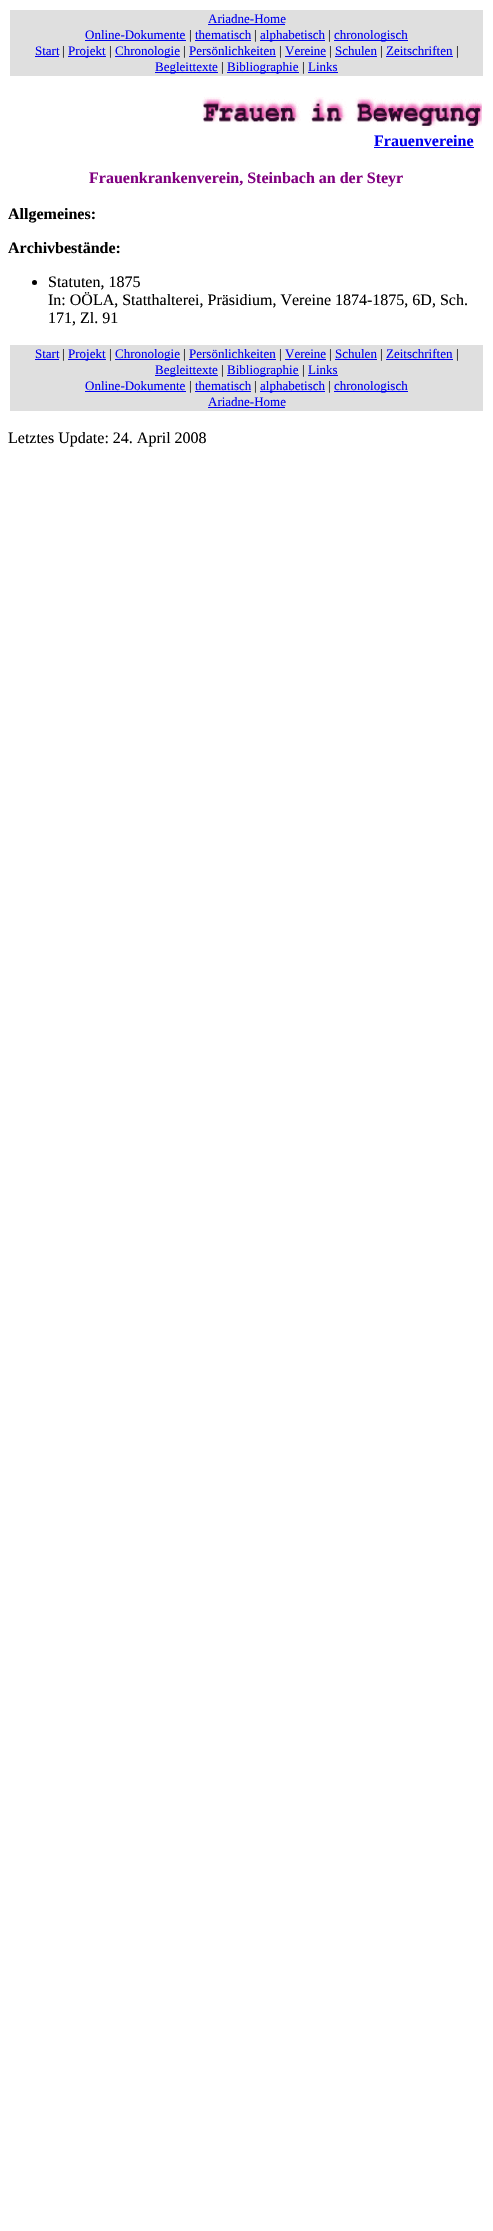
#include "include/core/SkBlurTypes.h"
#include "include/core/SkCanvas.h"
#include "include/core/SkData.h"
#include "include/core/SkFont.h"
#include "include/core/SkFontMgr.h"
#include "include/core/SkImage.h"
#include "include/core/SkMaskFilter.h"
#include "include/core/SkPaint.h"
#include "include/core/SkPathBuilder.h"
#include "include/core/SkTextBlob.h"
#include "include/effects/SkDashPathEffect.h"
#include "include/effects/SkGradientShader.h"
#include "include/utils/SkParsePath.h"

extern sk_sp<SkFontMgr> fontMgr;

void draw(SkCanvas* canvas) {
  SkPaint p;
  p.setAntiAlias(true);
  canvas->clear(SK_ColorWHITE);
  p.setColor(SkColorSetRGB(223, 223, 223));
  canvas->drawRect(SkRect::MakeLTRB(10, 10, 483, 76), p);
  p.setColor(SkColorSetRGB(0, 0, 238));
  canvas->drawRect(SkRect::MakeLTRB(208, 24, 285, 25), p);
  canvas->drawRect(SkRect::MakeLTRB(85, 40, 186, 41), p);
  canvas->drawRect(SkRect::MakeLTRB(195, 40, 251, 41), p);
  canvas->drawRect(SkRect::MakeLTRB(260, 40, 325, 41), p);
  canvas->drawRect(SkRect::MakeLTRB(334, 40, 408, 41), p);
  canvas->drawRect(SkRect::MakeLTRB(35, 56, 59, 57), p);
  canvas->drawRect(SkRect::MakeLTRB(68, 56, 106, 57), p);
  canvas->drawRect(SkRect::MakeLTRB(115, 56, 180, 57), p);
  canvas->drawRect(SkRect::MakeLTRB(189, 56, 276, 57), p);
  canvas->drawRect(SkRect::MakeLTRB(285, 56, 326, 57), p);
  canvas->drawRect(SkRect::MakeLTRB(335, 56, 377, 57), p);
  canvas->drawRect(SkRect::MakeLTRB(386, 56, 453, 57), p);
  canvas->drawRect(SkRect::MakeLTRB(155, 72, 218, 73), p);
  canvas->drawRect(SkRect::MakeLTRB(227, 72, 299, 73), p);
  canvas->drawRect(SkRect::MakeLTRB(308, 72, 338, 73), p);
  canvas->drawImageRect(SkImages::DeferredFromEncodedData(SkData::MakeFromFileName("images/1.png")), SkRect::MakeLTRB(202, 97, 482, 128), SkSamplingOptions());
  canvas->drawRect(SkRect::MakeLTRB(374, 147, 474, 148), p);
  p.setColor(SK_ColorBLACK);
  canvas->drawCircle(34.5f, 282.5f, 2.5f, p);
  p.setColor(SkColorSetRGB(223, 223, 223));
  canvas->drawRect(SkRect::MakeLTRB(10, 345, 483, 411), p);
  p.setColor(SkColorSetRGB(0, 0, 238));
  canvas->drawRect(SkRect::MakeLTRB(35, 359, 59, 360), p);
  canvas->drawRect(SkRect::MakeLTRB(68, 359, 106, 360), p);
  canvas->drawRect(SkRect::MakeLTRB(115, 359, 180, 360), p);
  canvas->drawRect(SkRect::MakeLTRB(189, 359, 276, 360), p);
  canvas->drawRect(SkRect::MakeLTRB(285, 359, 326, 360), p);
  canvas->drawRect(SkRect::MakeLTRB(335, 359, 377, 360), p);
  canvas->drawRect(SkRect::MakeLTRB(386, 359, 453, 360), p);
  canvas->drawRect(SkRect::MakeLTRB(155, 375, 218, 376), p);
  canvas->drawRect(SkRect::MakeLTRB(227, 375, 299, 376), p);
  canvas->drawRect(SkRect::MakeLTRB(308, 375, 338, 376), p);
  canvas->drawRect(SkRect::MakeLTRB(85, 391, 186, 392), p);
  canvas->drawRect(SkRect::MakeLTRB(195, 391, 251, 392), p);
  canvas->drawRect(SkRect::MakeLTRB(260, 391, 325, 392), p);
  canvas->drawRect(SkRect::MakeLTRB(334, 391, 408, 392), p);
  canvas->drawRect(SkRect::MakeLTRB(208, 407, 285, 408), p);
  SkFont font1(fontMgr->matchFamilyStyle("Liberation Serif", SkFontStyle::Normal()), 13);
  font1.setSubpixel(true);
  canvas->drawString("Ariadne-Home", 208, 23, font1, p);
  canvas->drawString("Online-Dokumente", 85, 39, font1, p);
  p.setColor(SK_ColorBLACK);
  canvas->drawString("|", 189, 39, font1, p);
  p.setColor(SkColorSetRGB(0, 0, 238));
  canvas->drawString("thematisch", 195, 39, font1, p);
  p.setColor(SK_ColorBLACK);
  canvas->drawString("|", 254, 39, font1, p);
  p.setColor(SkColorSetRGB(0, 0, 238));
  canvas->drawString("alphabetisch", 260, 39, font1, p);
  p.setColor(SK_ColorBLACK);
  canvas->drawString("|", 328, 39, font1, p);
  p.setColor(SkColorSetRGB(0, 0, 238));
  canvas->drawString("chronologisch", 334, 39, font1, p);
  canvas->drawString("Start", 35, 55, font1, p);
  p.setColor(SK_ColorBLACK);
  canvas->drawString("|", 62, 55, font1, p);
  p.setColor(SkColorSetRGB(0, 0, 238));
  canvas->drawString("Projekt", 68, 55, font1, p);
  p.setColor(SK_ColorBLACK);
  canvas->drawString("|", 109, 55, font1, p);
  p.setColor(SkColorSetRGB(0, 0, 238));
  canvas->drawString("Chronologie", 115, 55, font1, p);
  p.setColor(SK_ColorBLACK);
  canvas->drawString("|", 183, 55, font1, p);
  p.setColor(SkColorSetRGB(0, 0, 238));
  canvas->drawString("Persönlichkeiten", 189, 55, font1, p);
  p.setColor(SK_ColorBLACK);
  canvas->drawString("|", 279, 55, font1, p);
  p.setColor(SkColorSetRGB(0, 0, 238));
  canvas->drawString("Vereine", 285, 55, font1, p);
  p.setColor(SK_ColorBLACK);
  canvas->drawString("|", 329, 55, font1, p);
  p.setColor(SkColorSetRGB(0, 0, 238));
  canvas->drawString("Schulen", 335, 55, font1, p);
  p.setColor(SK_ColorBLACK);
  canvas->drawString("|", 380, 55, font1, p);
  p.setColor(SkColorSetRGB(0, 0, 238));
  canvas->drawString("Zeitschriften", 386, 55, font1, p);
  p.setColor(SK_ColorBLACK);
  canvas->drawString("|", 456, 55, font1, p);
  p.setColor(SkColorSetRGB(0, 0, 238));
  canvas->drawString("Begleittexte", 155, 71, font1, p);
  p.setColor(SK_ColorBLACK);
  canvas->drawString("|", 221, 71, font1, p);
  p.setColor(SkColorSetRGB(0, 0, 238));
  canvas->drawString("Bibliographie", 227, 71, font1, p);
  p.setColor(SK_ColorBLACK);
  canvas->drawString("|", 302, 71, font1, p);
  p.setColor(SkColorSetRGB(0, 0, 238));
  canvas->drawString("Links", 308, 71, font1, p);
  SkFont font2(fontMgr->matchFamilyStyle("Liberation Serif", SkFontStyle::Bold()), 16);
  font2.setSubpixel(true);
  canvas->drawString("Frauenvereine", 374, 146, font2, p);
  p.setColor(SkColorSetRGB(128, 0, 128));
  canvas->drawString("Frauenkrankenverein, Steinbach an der Steyr", 89, 183, font2, p);
  p.setColor(SK_ColorBLACK);
  canvas->drawString("Allgemeines:", 8, 219, font2, p);
  canvas->drawString("Archivbestände:", 8, 253, font2, p);
  SkFont font3(fontMgr->matchFamilyStyle("Liberation Serif", SkFontStyle::Normal()), 16);
  font3.setSubpixel(true);
  canvas->drawString("Statuten, 1875", 48, 287, font3, p);
  canvas->drawString("In: OÖLA, Statthalterei, Präsidium, Vereine 1874-1875, 6D, Sch.", 48, 305, font3, p);
  canvas->drawString("171, Zl. 91", 48, 323, font3, p);
  p.setColor(SkColorSetRGB(0, 0, 238));
  canvas->drawString("Start", 35, 358, font1, p);
  p.setColor(SK_ColorBLACK);
  canvas->drawString("|", 62, 358, font1, p);
  p.setColor(SkColorSetRGB(0, 0, 238));
  canvas->drawString("Projekt", 68, 358, font1, p);
  p.setColor(SK_ColorBLACK);
  canvas->drawString("|", 109, 358, font1, p);
  p.setColor(SkColorSetRGB(0, 0, 238));
  canvas->drawString("Chronologie", 115, 358, font1, p);
  p.setColor(SK_ColorBLACK);
  canvas->drawString("|", 183, 358, font1, p);
  p.setColor(SkColorSetRGB(0, 0, 238));
  canvas->drawString("Persönlichkeiten", 189, 358, font1, p);
  p.setColor(SK_ColorBLACK);
  canvas->drawString("|", 279, 358, font1, p);
  p.setColor(SkColorSetRGB(0, 0, 238));
  canvas->drawString("Vereine", 285, 358, font1, p);
  p.setColor(SK_ColorBLACK);
  canvas->drawString("|", 329, 358, font1, p);
  p.setColor(SkColorSetRGB(0, 0, 238));
  canvas->drawString("Schulen", 335, 358, font1, p);
  p.setColor(SK_ColorBLACK);
  canvas->drawString("|", 380, 358, font1, p);
  p.setColor(SkColorSetRGB(0, 0, 238));
  canvas->drawString("Zeitschriften", 386, 358, font1, p);
  p.setColor(SK_ColorBLACK);
  canvas->drawString("|", 456, 358, font1, p);
  p.setColor(SkColorSetRGB(0, 0, 238));
  canvas->drawString("Begleittexte", 155, 374, font1, p);
  p.setColor(SK_ColorBLACK);
  canvas->drawString("|", 221, 374, font1, p);
  p.setColor(SkColorSetRGB(0, 0, 238));
  canvas->drawString("Bibliographie", 227, 374, font1, p);
  p.setColor(SK_ColorBLACK);
  canvas->drawString("|", 302, 374, font1, p);
  p.setColor(SkColorSetRGB(0, 0, 238));
  canvas->drawString("Links", 308, 374, font1, p);
  canvas->drawString("Online-Dokumente", 85, 390, font1, p);
  p.setColor(SK_ColorBLACK);
  canvas->drawString("|", 189, 390, font1, p);
  p.setColor(SkColorSetRGB(0, 0, 238));
  canvas->drawString("thematisch", 195, 390, font1, p);
  p.setColor(SK_ColorBLACK);
  canvas->drawString("|", 254, 390, font1, p);
  p.setColor(SkColorSetRGB(0, 0, 238));
  canvas->drawString("alphabetisch", 260, 390, font1, p);
  p.setColor(SK_ColorBLACK);
  canvas->drawString("|", 328, 390, font1, p);
  p.setColor(SkColorSetRGB(0, 0, 238));
  canvas->drawString("chronologisch", 334, 390, font1, p);
  canvas->drawString("Ariadne-Home", 208, 406, font1, p);
  p.setColor(SK_ColorBLACK);
  canvas->drawString("Letztes Update: 24. April 2008", 8, 443, font3, p);
}
